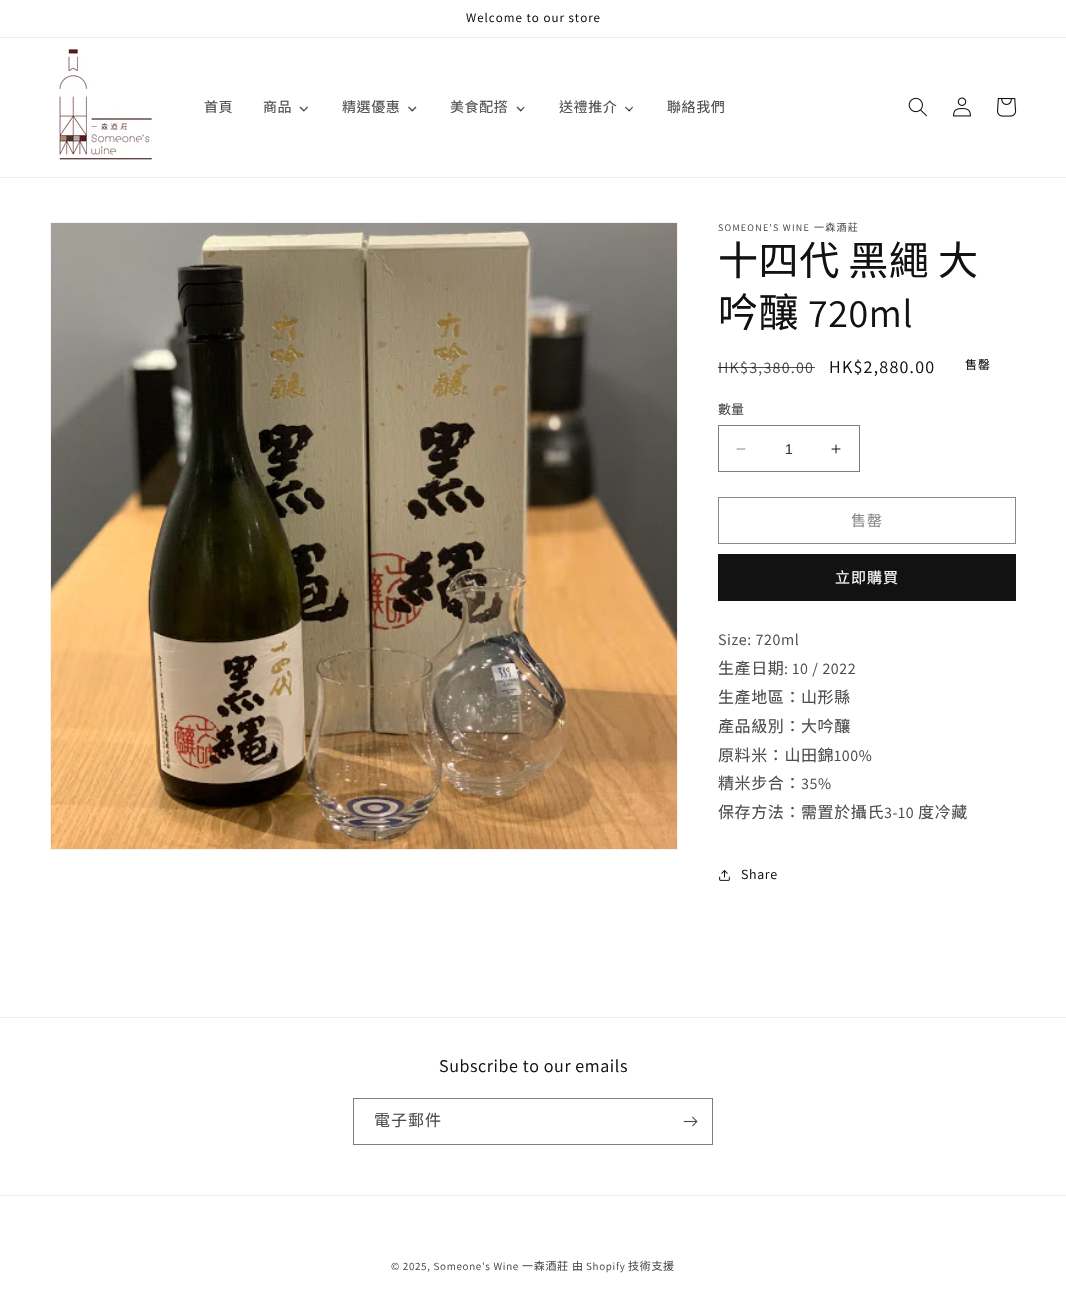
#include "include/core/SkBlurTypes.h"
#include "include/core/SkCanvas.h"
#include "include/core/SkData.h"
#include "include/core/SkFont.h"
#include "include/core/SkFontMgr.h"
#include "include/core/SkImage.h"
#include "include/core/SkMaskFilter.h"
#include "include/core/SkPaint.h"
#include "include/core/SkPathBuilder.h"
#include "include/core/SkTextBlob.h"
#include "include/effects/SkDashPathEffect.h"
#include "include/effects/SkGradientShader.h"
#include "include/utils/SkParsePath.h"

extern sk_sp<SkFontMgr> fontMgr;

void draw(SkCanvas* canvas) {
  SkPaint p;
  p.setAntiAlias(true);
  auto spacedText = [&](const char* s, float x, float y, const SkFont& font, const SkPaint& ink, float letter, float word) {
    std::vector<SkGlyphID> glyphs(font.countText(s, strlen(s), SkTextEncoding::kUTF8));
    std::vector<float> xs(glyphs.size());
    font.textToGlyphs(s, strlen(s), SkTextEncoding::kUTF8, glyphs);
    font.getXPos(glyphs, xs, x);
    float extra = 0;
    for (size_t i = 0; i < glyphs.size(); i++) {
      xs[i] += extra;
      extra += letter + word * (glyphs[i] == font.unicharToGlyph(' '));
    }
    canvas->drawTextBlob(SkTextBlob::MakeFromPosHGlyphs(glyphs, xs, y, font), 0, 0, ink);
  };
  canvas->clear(SK_ColorWHITE);
  p.setColor(SkColorSetRGB(236, 236, 236));
  canvas->drawRect(SkRect::MakeLTRB(0, 37, 1066, 38), p);
  canvas->drawRect(SkRect::MakeLTRB(0, 177, 1066, 178), p);
  canvas->drawImageRect(SkImages::DeferredFromEncodedData(SkData::MakeFromFileName("images/1.png")), SkRect::MakeLTRB(58, 48, 154, 160), SkSamplingOptions());
  p.setColor(SkColorSetRGB(77, 77, 77));
  canvas->drawPath(SkPathBuilder().moveTo(307, 106.5f).lineTo(308, 107.5f).lineTo(304, 111.5f).lineTo(303.5f, 110.5f).close().detach(), p);
  p.setColor(SkColorSetARGB(191, 18, 18, 18));
  canvas->drawPath(SkPathBuilder().moveTo(300.5f, 106.5f).lineTo(304.5f, 110.5f).lineTo(303.5f, 111.5f).lineTo(299.5f, 107.5f).close().detach(), p);
  p.setColor(SkColorSetRGB(77, 77, 77));
  canvas->drawPath(SkPathBuilder().moveTo(415.5f, 106.5f).lineTo(416.5f, 107.5f).lineTo(412.5f, 111.5f).lineTo(411.5f, 110.5f).close().detach(), p);
  p.setColor(SkColorSetARGB(191, 18, 18, 18));
  canvas->drawPath(SkPathBuilder().moveTo(409, 106.5f).lineTo(413, 110.5f).lineTo(412, 111.5f).lineTo(408, 107.5f).close().detach(), p);
  p.setColor(SkColorSetRGB(77, 77, 77));
  canvas->drawPath(SkPathBuilder().moveTo(524, 106.5f).lineTo(524.5f, 107.5f).lineTo(521, 111.5f).lineTo(520, 110.5f).close().detach(), p);
  p.setColor(SkColorSetARGB(191, 18, 18, 18));
  canvas->drawPath(SkPathBuilder().moveTo(517.5f, 106.5f).lineTo(521.5f, 110.5f).lineTo(520.5f, 111.5f).lineTo(516.5f, 107.5f).close().detach(), p);
  p.setColor(SkColorSetRGB(77, 77, 77));
  canvas->drawPath(SkPathBuilder().moveTo(632.5f, 106.5f).lineTo(633, 107.5f).lineTo(629.5f, 111.5f).lineTo(628.5f, 110.5f).close().detach(), p);
  p.setColor(SkColorSetARGB(191, 18, 18, 18));
  canvas->drawPath(SkPathBuilder().moveTo(625.5f, 106.5f).lineTo(630, 110.5f).lineTo(629, 111.5f).lineTo(625, 107.5f).close().detach(), p);
  canvas->drawImageRect(SkImages::DeferredFromEncodedData(SkData::MakeFromFileName("images/2.png")), SkRect::MakeLTRB(908, 97, 927, 117), SkSamplingOptions());
  canvas->drawImageRect(SkImages::DeferredFromEncodedData(SkData::MakeFromFileName("images/3.png")), SkRect::MakeLTRB(953, 97, 971, 117), SkSamplingOptions());
  canvas->drawImageRect(SkImages::DeferredFromEncodedData(SkData::MakeFromFileName("images/4.png")), SkRect::MakeLTRB(997, 98, 1017, 117), SkSamplingOptions());
  p.setStyle(SkPaint::kStroke_Style);
  p.setStrokeWidth(1);
  p.setColor(SkColorSetRGB(243, 243, 243));
  canvas->drawRect(SkRect::MakeLTRB(50.5f, 222.5f, 677.5f, 849.5f), p);
  canvas->drawImageRect(SkImages::DeferredFromEncodedData(SkData::MakeFromFileName("images/5.png")), SkRect::MakeLTRB(51, 223, 677, 849), SkSamplingOptions());
  canvas->drawImageRect(SkImages::DeferredFromEncodedData(SkData::MakeFromFileName("images/6.png")), SkRect::MakeLTRB(736, 448, 746, 450), SkSamplingOptions());
  canvas->drawImageRect(SkImages::DeferredFromEncodedData(SkData::MakeFromFileName("images/7.png")), SkRect::MakeLTRB(831, 444, 841, 454), SkSamplingOptions());
  p.setColor(SkColorSetRGB(125, 125, 125));
  canvas->drawRect(SkRect::MakeLTRB(718.5f, 425.5f, 859.5f, 471.5f), p);
  p.setColor(SkColorSetRGB(137, 137, 137));
  canvas->drawRect(SkRect::MakeLTRB(718.5f, 497.5f, 1015.5f, 543.5f), p);
  p.setStyle(SkPaint::kFill_Style);
  p.setColor(SkColorSetRGB(18, 18, 18));
  canvas->drawRect(SkRect::MakeLTRB(718, 554, 1016, 601), p);
  canvas->drawImageRect(SkImages::DeferredFromEncodedData(SkData::MakeFromFileName("images/8.png")), SkRect::MakeLTRB(719, 870, 730, 881), SkSamplingOptions());
  p.setColor(SkColorSetRGB(236, 236, 236));
  canvas->drawRect(SkRect::MakeLTRB(0, 1017, 1066, 1018), p);
  p.setStyle(SkPaint::kStroke_Style);
  p.setColor(SkColorSetRGB(125, 125, 125));
  canvas->drawRect(SkRect::MakeLTRB(353.5f, 1098.5f, 712.5f, 1144.5f), p);
  canvas->drawImageRect(SkImages::DeferredFromEncodedData(SkData::MakeFromFileName("images/9.png")), SkRect::MakeLTRB(683, 1116, 698, 1127), SkSamplingOptions());
  p.setStyle(SkPaint::kFill_Style);
  p.setColor(SkColorSetRGB(236, 236, 236));
  canvas->drawRect(SkRect::MakeLTRB(0, 1195, 1066, 1196), p);
  SkFont font1(fontMgr->matchFamilyStyle("Assistant", SkFontStyle::Normal()), 13);
  font1.setSubpixel(true);
  p.setColor(SkColorSetRGB(18, 18, 18));
  spacedText("Welcome to our store", 466, 22, font1, p, 1, 0);
  SkFont font2(fontMgr->matchFamilyStyle("Noto Sans CJK TC", SkFontStyle::Normal()), 14);
  font2.setSubpixel(true);
  p.setColor(SkColorSetRGB(77, 77, 77));
  spacedText("首頁", 204, 112, font2, p, 0.6f, 0);
  spacedText("商品", 263, 112, font2, p, 0.6f, 0);
  spacedText("精選優惠", 342, 112, font2, p, 0.6f, 0);
  spacedText("美食配撘", 450, 112, font2, p, 0.6f, 0);
  spacedText("送禮推介", 559, 112, font2, p, 0.6f, 0);
  spacedText("聯絡我們", 667, 112, font2, p, 0.6f, 0);
  SkFont font3(fontMgr->matchFamilyStyle("Assistant", SkFontStyle::Normal()), 10);
  font3.setSubpixel(true);
  spacedText("SOMEONE'S WINE", 718, 231, font3, p, 1.25f, 0);
  SkFont font4(fontMgr->matchFamilyStyle("Noto Sans CJK TC", SkFontStyle::Normal()), 10);
  font4.setSubpixel(true);
  spacedText("一森酒莊", 814, 231, font4, p, 1.25f, 0);
  SkFont font5(fontMgr->matchFamilyStyle("Noto Sans CJK TC", SkFontStyle::Normal()), 40);
  font5.setSubpixel(true);
  p.setColor(SkColorSetRGB(18, 18, 18));
  spacedText("十四代 黑繩 大", 718, 275, font5, p, 0.6f, -1);
  spacedText("吟釀", 718, 327, font5, p, 0.6f, 0);
  SkFont font6(fontMgr->matchFamilyStyle("Assistant", SkFontStyle::Normal()), 40);
  font6.setSubpixel(true);
  spacedText("720ml", 808, 327, font6, p, 0.6f, 0);
  SkFont font7(fontMgr->matchFamilyStyle("Assistant", SkFontStyle::Normal()), 16);
  font7.setSubpixel(true);
  p.setColor(SkColorSetRGB(77, 77, 77));
  spacedText("HK$3,380.00", 718, 373, font7, p, 1.25f, 0);
  p.setColor(SkColorSetARGB(191, 18, 18, 18));
  canvas->drawRect(SkRect::MakeLTRB(718, 367, 815, 368), p);
  SkFont font8(fontMgr->matchFamilyStyle("Assistant", SkFontStyle::Normal()), 18);
  font8.setSubpixel(true);
  p.setColor(SkColorSetRGB(18, 18, 18));
  spacedText("HK$2,880.00", 829, 373, font8, p, 1.25f, 0);
  SkFont font9(fontMgr->matchFamilyStyle("Noto Sans CJK TC", SkFontStyle::Normal()), 12);
  font9.setSubpixel(true);
  spacedText("售罄", 965, 369, font9, p, 1, 0);
  SkFont font10(fontMgr->matchFamilyStyle("Noto Sans CJK TC", SkFontStyle::Normal()), 13);
  font10.setSubpixel(true);
  p.setColor(SkColorSetRGB(77, 77, 77));
  canvas->drawString("數量", 718, 414, font10, p);
  SkFont font11(fontMgr->matchFamilyStyle("Liberation Sans", SkFontStyle::Normal()), 14);
  font11.setSubpixel(true);
  p.setColor(SkColorSetRGB(54, 54, 54));
  canvas->drawString("1", 785, 454, font11, p);
  SkFont font12(fontMgr->matchFamilyStyle("Noto Sans CJK TC", SkFontStyle::Normal()), 15);
  font12.setSubpixel(true);
  p.setColor(SkColorSetRGB(137, 137, 137));
  spacedText("售罄", 851, 526, font12, p, 1, 0);
  p.setColor(SK_ColorWHITE);
  spacedText("立即購買", 835, 583, font12, p, 1, 0);
  p.setColor(SkColorSetRGB(77, 77, 77));
  spacedText("Size: 720ml", 718, 645, font7, p, 0.6f, 0);
  SkFont font13(fontMgr->matchFamilyStyle("Noto Sans CJK TC", SkFontStyle::Normal()), 16);
  font13.setSubpixel(true);
  spacedText("生產日期", 718, 674, font13, p, 0.6f, 0);
  spacedText(": 10 / 2022", 784, 674, font7, p, 0.6f, 0);
  spacedText("生產地區：山形縣", 718, 703, font13, p, 0.6f, 0);
  spacedText("產品級別：大吟釀", 718, 732, font13, p, 0.6f, 0);
  spacedText("原料米：山田錦", 718, 761, font13, p, 0.6f, 0);
  spacedText("100%", 834, 761, font7, p, 0.6f, 0);
  spacedText("精米步合：", 718, 789, font13, p, 0.6f, 0);
  spacedText("35%", 801, 789, font7, p, 0.6f, 0);
  spacedText("保存方法：需置於攝氏", 718, 818, font13, p, 0.6f, 0);
  spacedText("3-10", 884, 818, font7, p, 0.6f, 0);
  spacedText("度冷藏", 918, 818, font13, p, 0.6f, 0);
  SkFont font14(fontMgr->matchFamilyStyle("Assistant", SkFontStyle::Normal()), 14);
  font14.setSubpixel(true);
  p.setColor(SkColorSetRGB(18, 18, 18));
  spacedText("Share", 741, 879, font14, p, 0.6f, 0);
  spacedText("Subscribe to our emails", 439, 1072, font8, p, 0.6f, 0);
  p.setColor(SkColorSetRGB(77, 77, 77));
  spacedText("電子郵件", 374, 1126, font13, p, 1, 0);
  SkFont font15(fontMgr->matchFamilyStyle("Assistant", SkFontStyle::Normal()), 11);
  font15.setSubpixel(true);
  spacedText("© 2025, Someone's Wine", 391, 1270, font15, p, 0.7f, 0);
  SkFont font16(fontMgr->matchFamilyStyle("Noto Sans CJK TC", SkFontStyle::Normal()), 11);
  font16.setSubpixel(true);
  spacedText("一森酒莊 由", 522, 1270, font16, p, 0.7f, 0);
  spacedText("Shopify", 586, 1270, font15, p, 0.7f, 0);
  spacedText("技術支援", 628, 1270, font16, p, 0.7f, 0);
}
